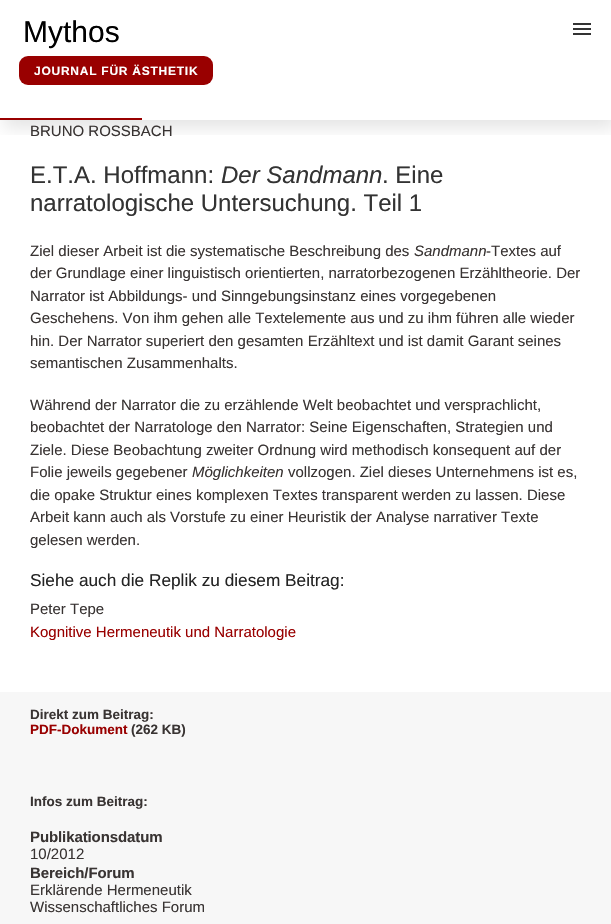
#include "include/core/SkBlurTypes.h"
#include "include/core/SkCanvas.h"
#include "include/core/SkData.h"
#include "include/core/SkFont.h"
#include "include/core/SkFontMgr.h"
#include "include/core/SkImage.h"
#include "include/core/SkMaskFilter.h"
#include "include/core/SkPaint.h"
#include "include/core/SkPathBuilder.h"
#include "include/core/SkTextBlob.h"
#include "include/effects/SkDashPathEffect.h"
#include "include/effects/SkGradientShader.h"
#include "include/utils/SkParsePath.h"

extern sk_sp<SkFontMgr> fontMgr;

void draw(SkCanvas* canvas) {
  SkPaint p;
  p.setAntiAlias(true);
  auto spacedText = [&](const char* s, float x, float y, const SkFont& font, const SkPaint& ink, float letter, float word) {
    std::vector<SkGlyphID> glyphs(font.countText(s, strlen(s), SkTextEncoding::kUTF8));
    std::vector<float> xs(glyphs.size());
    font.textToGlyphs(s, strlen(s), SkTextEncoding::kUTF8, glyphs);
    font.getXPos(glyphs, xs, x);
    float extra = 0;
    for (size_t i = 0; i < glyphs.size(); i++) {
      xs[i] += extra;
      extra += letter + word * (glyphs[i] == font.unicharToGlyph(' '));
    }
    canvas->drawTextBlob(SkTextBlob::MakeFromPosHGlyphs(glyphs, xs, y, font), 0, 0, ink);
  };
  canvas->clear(SK_ColorWHITE);
  canvas->save();
  canvas->clipRect(SkRect::MakeLTRB(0, 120, 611, 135));
  p.setColor(SkColorSetARGB(26, 0, 0, 0));
  p.setMaskFilter(SkMaskFilter::MakeBlur(kNormal_SkBlurStyle, 8));
  canvas->drawRect(SkRect::MakeLTRB(4, 8, 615, 128), p);
  p.setMaskFilter(nullptr);
  canvas->restore();
  p.setColor(SkColorSetRGB(153, 0, 0));
  canvas->drawRect(SkRect::MakeLTRB(0, 118, 142, 120), p);
  p.setColor(SkColorSetRGB(51, 51, 51));
  canvas->drawRect(SkRect::MakeLTRB(573, 28, 591, 30), p);
  canvas->drawRect(SkRect::MakeLTRB(573, 23, 591, 25), p);
  canvas->drawRect(SkRect::MakeLTRB(573, 33, 591, 35), p);
  p.setColor(SkColorSetRGB(153, 0, 0));
  canvas->drawRoundRect(SkRect::MakeLTRB(19, 56, 213, 85), 9, 9, p);
  p.setColor(SkColorSetRGB(247, 247, 247));
  canvas->drawRect(SkRect::MakeLTRB(0, 692, 611, 924), p);
  SkFont font1(fontMgr->matchFamilyStyle("Liberation Sans", SkFontStyle::Normal()), 30);
  font1.setSubpixel(true);
  p.setColor(SK_ColorBLACK);
  canvas->drawString("Mythos", 23, 42, font1, p);
  SkFont font2(fontMgr->matchFamilyStyle("Liberation Sans", SkFontStyle::Bold()), 12);
  font2.setSubpixel(true);
  p.setColor(SK_ColorWHITE);
  spacedText("JOURNAL FÜR ÄSTHETIK", 34, 75, font2, p, 0.75f, 0);
  SkFont font3(fontMgr->matchFamilyStyle("Liberation Sans", SkFontStyle::Normal()), 15);
  font3.setSubpixel(true);
  p.setColor(SkColorSetRGB(57, 52, 51));
  canvas->drawString("BRUNO ROSSBACH", 30, 136, font3, p);
  SkFont font4(fontMgr->matchFamilyStyle("Liberation Sans", SkFontStyle::Normal()), 24);
  font4.setSubpixel(true);
  p.setColor(SkColorSetRGB(51, 51, 51));
  canvas->drawString("E.T.A. Hoffmann:", 30, 183, font4, p);
  SkFont font5(fontMgr->matchFamilyStyle("Liberation Sans", SkFontStyle::Italic()), 24);
  font5.setSubpixel(true);
  canvas->drawString("Der Sandmann", 221, 183, font5, p);
  canvas->drawString(". Eine", 382, 183, font4, p);
  canvas->drawString("narratologische Untersuchung. Teil 1", 30, 211, font4, p);
  p.setColor(SkColorSetRGB(57, 52, 51));
  canvas->drawString("Ziel dieser Arbeit ist die systematische Beschreibung des", 30, 256, font3, p);
  SkFont font6(fontMgr->matchFamilyStyle("Liberation Sans", SkFontStyle::Italic()), 15);
  font6.setSubpixel(true);
  canvas->drawString("Sandmann", 414, 256, font6, p);
  canvas->drawString("-Textes auf", 486, 256, font3, p);
  canvas->drawString("der Grundlage einer linguistisch orientierten, narratorbezogenen Erzähltheorie. Der", 30, 278, font3, p);
  canvas->drawString("Narrator ist Abbildungs- und Sinngebungsinstanz eines vorgegebenen", 30, 301, font3, p);
  canvas->drawString("Geschehens. Von ihm gehen alle Textelemente aus und zu ihm führen alle wieder", 30, 323, font3, p);
  canvas->drawString("hin. Der Narrator superiert den gesamten Erzähltext und ist damit Garant seines", 30, 346, font3, p);
  canvas->drawString("semantischen Zusammenhalts.", 30, 368, font3, p);
  canvas->drawString("Während der Narrator die zu erzählende Welt beobachtet und versprachlicht,", 30, 410, font3, p);
  canvas->drawString("beobachtet der Narratologe den Narrator: Seine Eigenschaften, Strategien und", 30, 432, font3, p);
  canvas->drawString("Ziele. Diese Beobachtung zweiter Ordnung wird methodisch konsequent auf der", 30, 455, font3, p);
  canvas->drawString("Folie jeweils gegebener", 30, 477, font3, p);
  canvas->drawString("Möglichkeiten", 192, 477, font6, p);
  canvas->drawString("vollzogen. Ziel dieses Unternehmens ist es,", 288, 477, font3, p);
  canvas->drawString("die opake Struktur eines komplexen Textes transparent werden zu lassen. Diese", 30, 500, font3, p);
  canvas->drawString("Arbeit kann auch als Vorstufe zu einer Heuristik der Analyse narrativer Texte", 30, 522, font3, p);
  canvas->drawString("gelesen werden.", 30, 545, font3, p);
  SkFont font7(fontMgr->matchFamilyStyle("Liberation Sans", SkFontStyle::Normal()), 17.25f);
  font7.setSubpixel(true);
  p.setColor(SkColorSetRGB(36, 36, 36));
  canvas->drawString("Siehe auch die Replik zu diesem Beitrag:", 30, 586, font7, p);
  p.setColor(SkColorSetRGB(57, 52, 51));
  canvas->drawString("Peter Tepe", 30, 614, font3, p);
  p.setColor(SkColorSetRGB(153, 0, 0));
  canvas->drawString("Kognitive Hermeneutik und Narratologie", 30, 637, font3, p);
  SkFont font8(fontMgr->matchFamilyStyle("Liberation Sans", SkFontStyle::Bold()), 13.5f);
  font8.setSubpixel(true);
  p.setColor(SkColorSetRGB(57, 52, 51));
  canvas->drawString("Direkt zum Beitrag:", 30, 719, font8, p);
  p.setColor(SkColorSetRGB(153, 0, 0));
  canvas->drawString("PDF-Dokument", 30, 734, font8, p);
  p.setColor(SkColorSetRGB(57, 52, 51));
  canvas->drawString("(262 KB)", 131, 734, font8, p);
  canvas->drawString("Infos zum Beitrag:", 30, 806, font8, p);
  SkFont font9(fontMgr->matchFamilyStyle("Liberation Sans", SkFontStyle::Bold()), 15);
  font9.setSubpixel(true);
  spacedText("Publikationsdatum", 30, 842, font9, p, -0.1f, 0);
  canvas->drawString("10/2012", 30, 859, font3, p);
  spacedText("Bereich/Forum", 30, 878, font9, p, -0.1f, 0);
  canvas->drawString("Erklärende Hermeneutik", 30, 895, font3, p);
  canvas->drawString("Wissenschaftliches Forum", 30, 912, font3, p);
}
